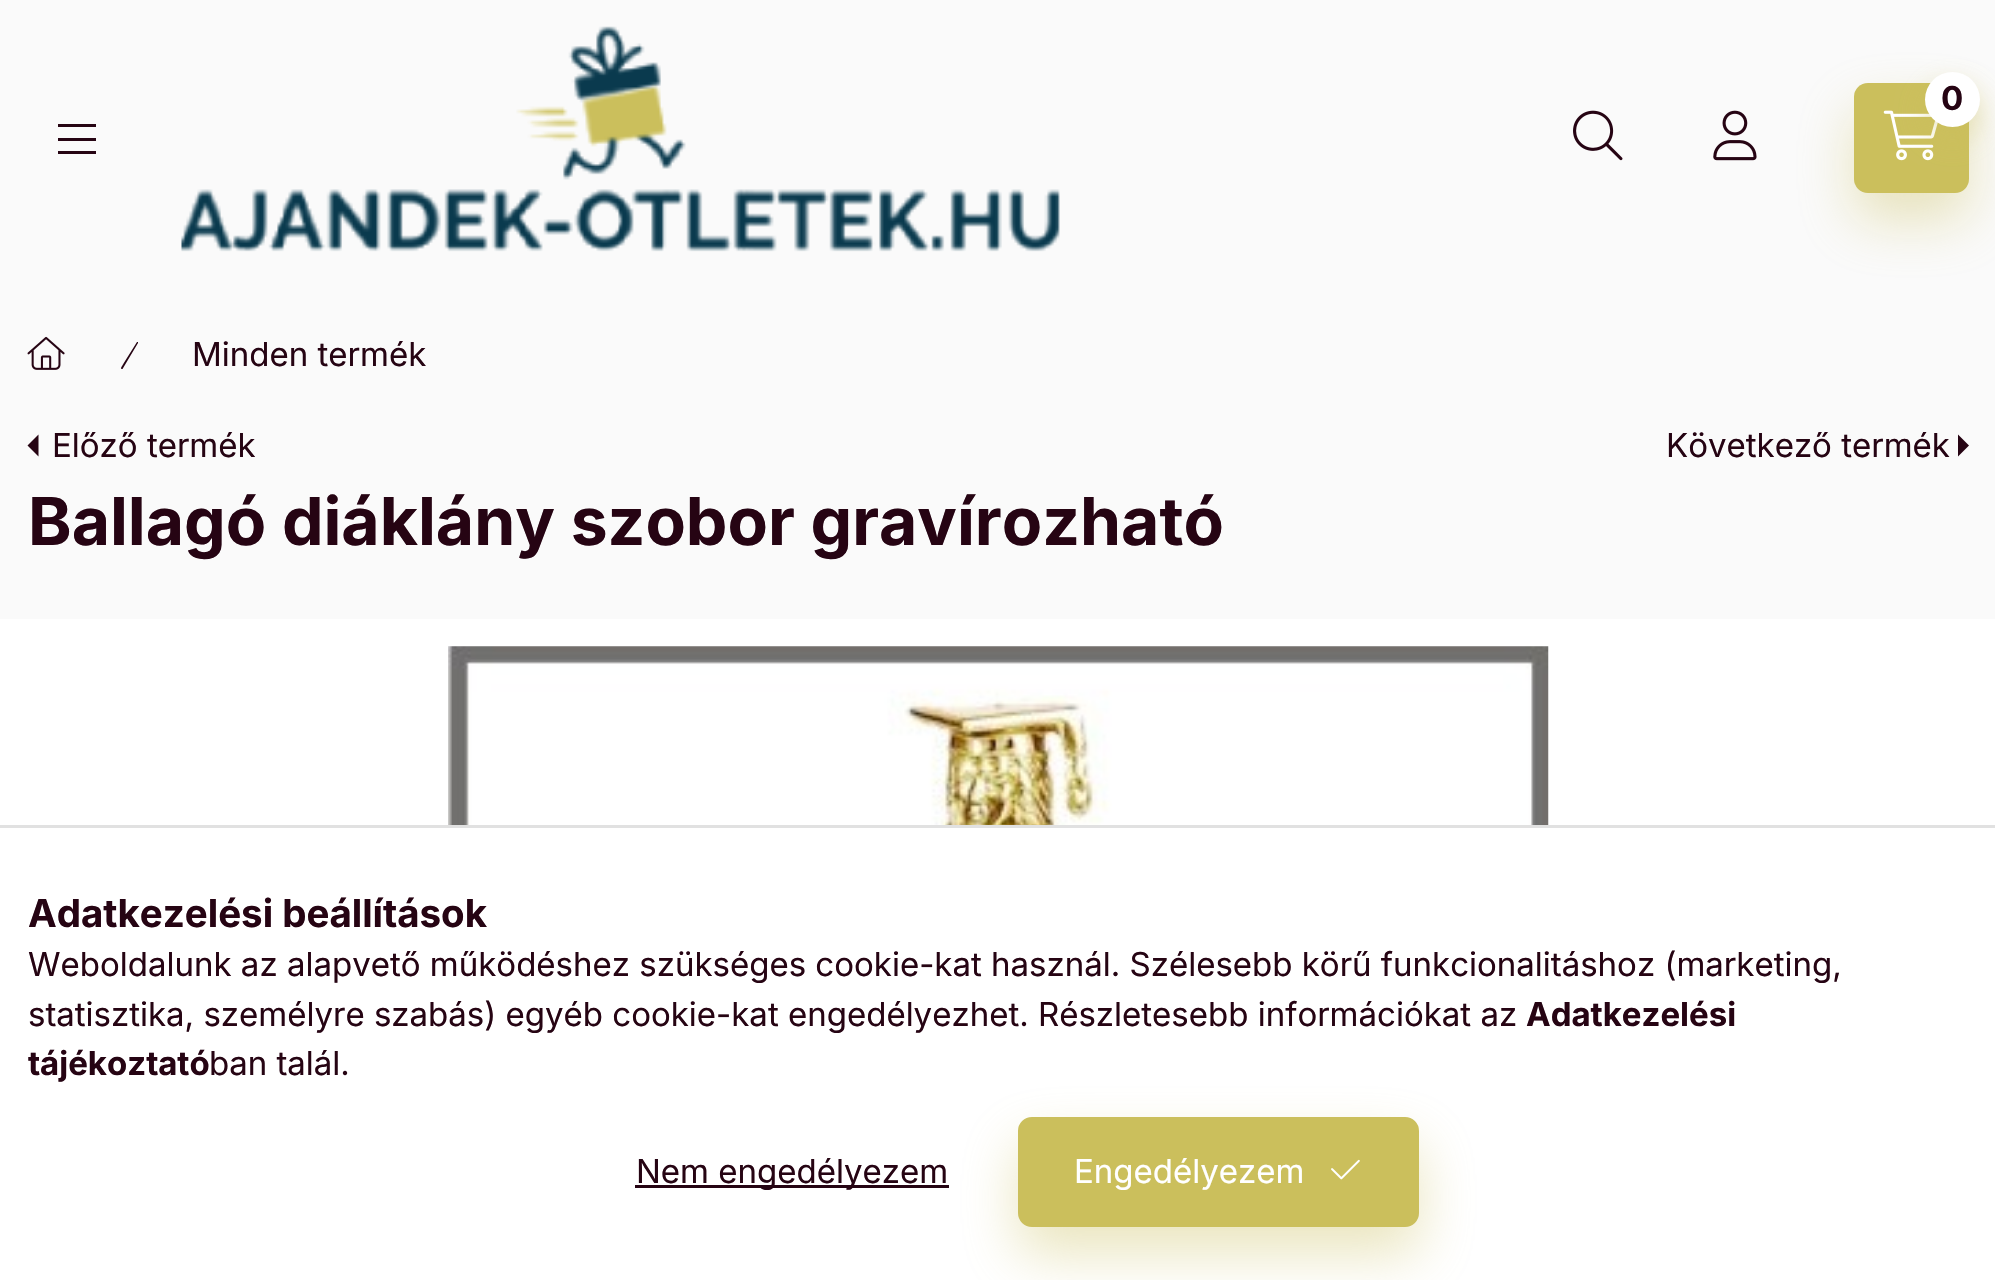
#include "include/core/SkBlurTypes.h"
#include "include/core/SkCanvas.h"
#include "include/core/SkData.h"
#include "include/core/SkFont.h"
#include "include/core/SkFontMgr.h"
#include "include/core/SkImage.h"
#include "include/core/SkMaskFilter.h"
#include "include/core/SkPaint.h"
#include "include/core/SkPathBuilder.h"
#include "include/core/SkTextBlob.h"
#include "include/effects/SkDashPathEffect.h"
#include "include/effects/SkGradientShader.h"
#include "include/utils/SkParsePath.h"

extern sk_sp<SkFontMgr> fontMgr;

void draw(SkCanvas* canvas) {
  SkPaint p;
  p.setAntiAlias(true);
  canvas->clear(SkColorSetRGB(250, 250, 250));
  p.setColor(SkColorSetRGB(38, 4, 19));
  canvas->drawRect(SkRect::MakeLTRB(58, 124, 96, 127), p);
  canvas->drawRect(SkRect::MakeLTRB(58, 138, 96, 141), p);
  canvas->drawRect(SkRect::MakeLTRB(58, 151, 96, 154), p);
  canvas->drawImageRect(SkImages::DeferredFromEncodedData(SkData::MakeFromFileName("images/1.png")), SkRect::MakeLTRB(181, 26, 1060, 252), SkSamplingOptions());
  p.setColor(SkColorSetARGB(102, 203, 191, 92));
  p.setMaskFilter(SkMaskFilter::MakeBlur(kNormal_SkBlurStyle, 27.5f));
  canvas->drawRoundRect(SkRect::MakeLTRB(1854, 110, 1969, 220), 14, 14, p);
  p.setMaskFilter(nullptr);
  p.setColor(SkColorSetRGB(203, 191, 92));
  canvas->drawRoundRect(SkRect::MakeLTRB(1854, 83, 1969, 193), 14, 14, p);
  canvas->drawImageRect(SkImages::DeferredFromEncodedData(SkData::MakeFromFileName("images/2.png")), SkRect::MakeLTRB(1883, 110, 1938, 161), SkSamplingOptions());
  p.setColor(SkColorSetARGB(102, 203, 191, 92));
  p.setMaskFilter(SkMaskFilter::MakeBlur(kNormal_SkBlurStyle, 14));
  canvas->drawRoundRect(SkRect::MakeLTRB(1925, 85, 1980, 140), 27.5f, 27.5f, p);
  p.setMaskFilter(nullptr);
  p.setColor(SK_ColorWHITE);
  canvas->drawCircle(1952.5f, 99.5f, 27.5f, p);
  canvas->drawImageRect(SkImages::DeferredFromEncodedData(SkData::MakeFromFileName("images/3.png")), SkRect::MakeLTRB(1573, 110, 1623, 161), SkSamplingOptions());
  canvas->drawImageRect(SkImages::DeferredFromEncodedData(SkData::MakeFromFileName("images/4.png")), SkRect::MakeLTRB(1713, 110, 1757, 161), SkSamplingOptions());
  canvas->drawImageRect(SkImages::DeferredFromEncodedData(SkData::MakeFromFileName("images/5.png")), SkRect::MakeLTRB(27, 336, 65, 370), SkSamplingOptions());
  p.setColor(SkColorSetRGB(38, 4, 19));
  canvas->drawPath(SkPathBuilder().moveTo(138, 342).lineTo(137, 342).lineTo(123.5f, 363.5f).cubicTo(123, 365, 120, 368, 121.5f, 369).lineTo(122, 369).lineTo(122.5f, 369).lineTo(138, 343).close().detach(), p);
  canvas->drawPath(SkPathBuilder().moveTo(38.5f, 456.5f).lineTo(38.5f, 434.5f).lineTo(27.5f, 445.5f).close().detach(), p);
  canvas->drawPath(SkPathBuilder().moveTo(1958, 456.5f).lineTo(1958, 434.5f).lineTo(1969, 445.5f).close().detach(), p);
  p.setColor(SK_ColorWHITE);
  canvas->drawRect(SkRect::MakeLTRB(0, 619, 1995, 825), p);
  canvas->drawImageRect(SkImages::DeferredFromEncodedData(SkData::MakeFromFileName("images/6.png")), SkRect::MakeLTRB(448, 646, 1549, 825), SkSamplingOptions());
  canvas->drawRect(SkRect::MakeLTRB(0, 828, 1995, 1280), p);
  p.setColor(SkColorSetRGB(225, 225, 225));
  canvas->drawRect(SkRect::MakeLTRB(0, 825, 1995, 828), p);
  p.setColor(SkColorSetRGB(38, 4, 19));
  canvas->drawRect(SkRect::MakeLTRB(635, 1185, 949, 1188), p);
  p.setColor(SkColorSetARGB(102, 203, 191, 92));
  p.setMaskFilter(SkMaskFilter::MakeBlur(kNormal_SkBlurStyle, 27.5f));
  canvas->drawRoundRect(SkRect::MakeLTRB(1018, 1144, 1419, 1254), 14, 14, p);
  p.setMaskFilter(nullptr);
  p.setColor(SkColorSetRGB(203, 191, 92));
  canvas->drawRoundRect(SkRect::MakeLTRB(1019.5f, 1118.5f, 1417.5f, 1225.5f), 12.5f, 12.5f, p);
  p.setStyle(SkPaint::kStroke_Style);
  p.setStrokeWidth(3);
  canvas->drawRoundRect(SkRect::MakeLTRB(1019.5f, 1118.5f, 1417.5f, 1225.5f), 12.5f, 12.5f, p);
  canvas->drawImageRect(SkImages::DeferredFromEncodedData(SkData::MakeFromFileName("images/7.png")), SkRect::MakeLTRB(1331, 1159, 1360, 1180), SkSamplingOptions());
  SkFont font1(fontMgr->matchFamilyStyle("Inter", SkFontStyle::Bold()), 33);
  font1.setSubpixel(true);
  p.setStyle(SkPaint::kFill_Style);
  p.setColor(SkColorSetRGB(38, 4, 19));
  canvas->drawString("0", 1941, 110, font1, p);
  SkFont font2(fontMgr->matchFamilyStyle("Inter", SkFontStyle::Normal()), 33);
  font2.setSubpixel(true);
  canvas->drawString("Minden termék", 192, 366, font2, p);
  canvas->drawString("Előző termék", 52, 457, font2, p);
  canvas->drawString("Következő termék", 1666, 457, font2, p);
  SkFont font3(fontMgr->matchFamilyStyle("Inter", SkFontStyle::Bold()), 66);
  font3.setSubpixel(true);
  canvas->drawString("Ballagó diáklány szobor gravírozható", 28, 545, font3, p);
  SkFont font4(fontMgr->matchFamilyStyle("Inter", SkFontStyle::Bold()), 38.5f);
  font4.setSubpixel(true);
  canvas->drawString("Adatkezelési beállítások", 28, 927, font4, p);
  canvas->drawString("Weboldalunk az alapvető működéshez szükséges cookie-kat használ. Szélesebb körű funkcionalitáshoz (marketing,", 28, 976, font2, p);
  canvas->drawString("statisztika, személyre szabás) egyéb cookie-kat engedélyezhet. Részletesebb információkat az", 28, 1026, font2, p);
  canvas->drawString("Adatkezelési", 1526, 1026, font1, p);
  canvas->drawString("tájékoztató", 28, 1075, font1, p);
  canvas->drawString("ban talál.", 209, 1075, font2, p);
  canvas->drawString("Nem engedélyezem", 636, 1183, font2, p);
  p.setColor(SK_ColorWHITE);
  canvas->drawString("Engedélyezem", 1074, 1183, font2, p);
}
